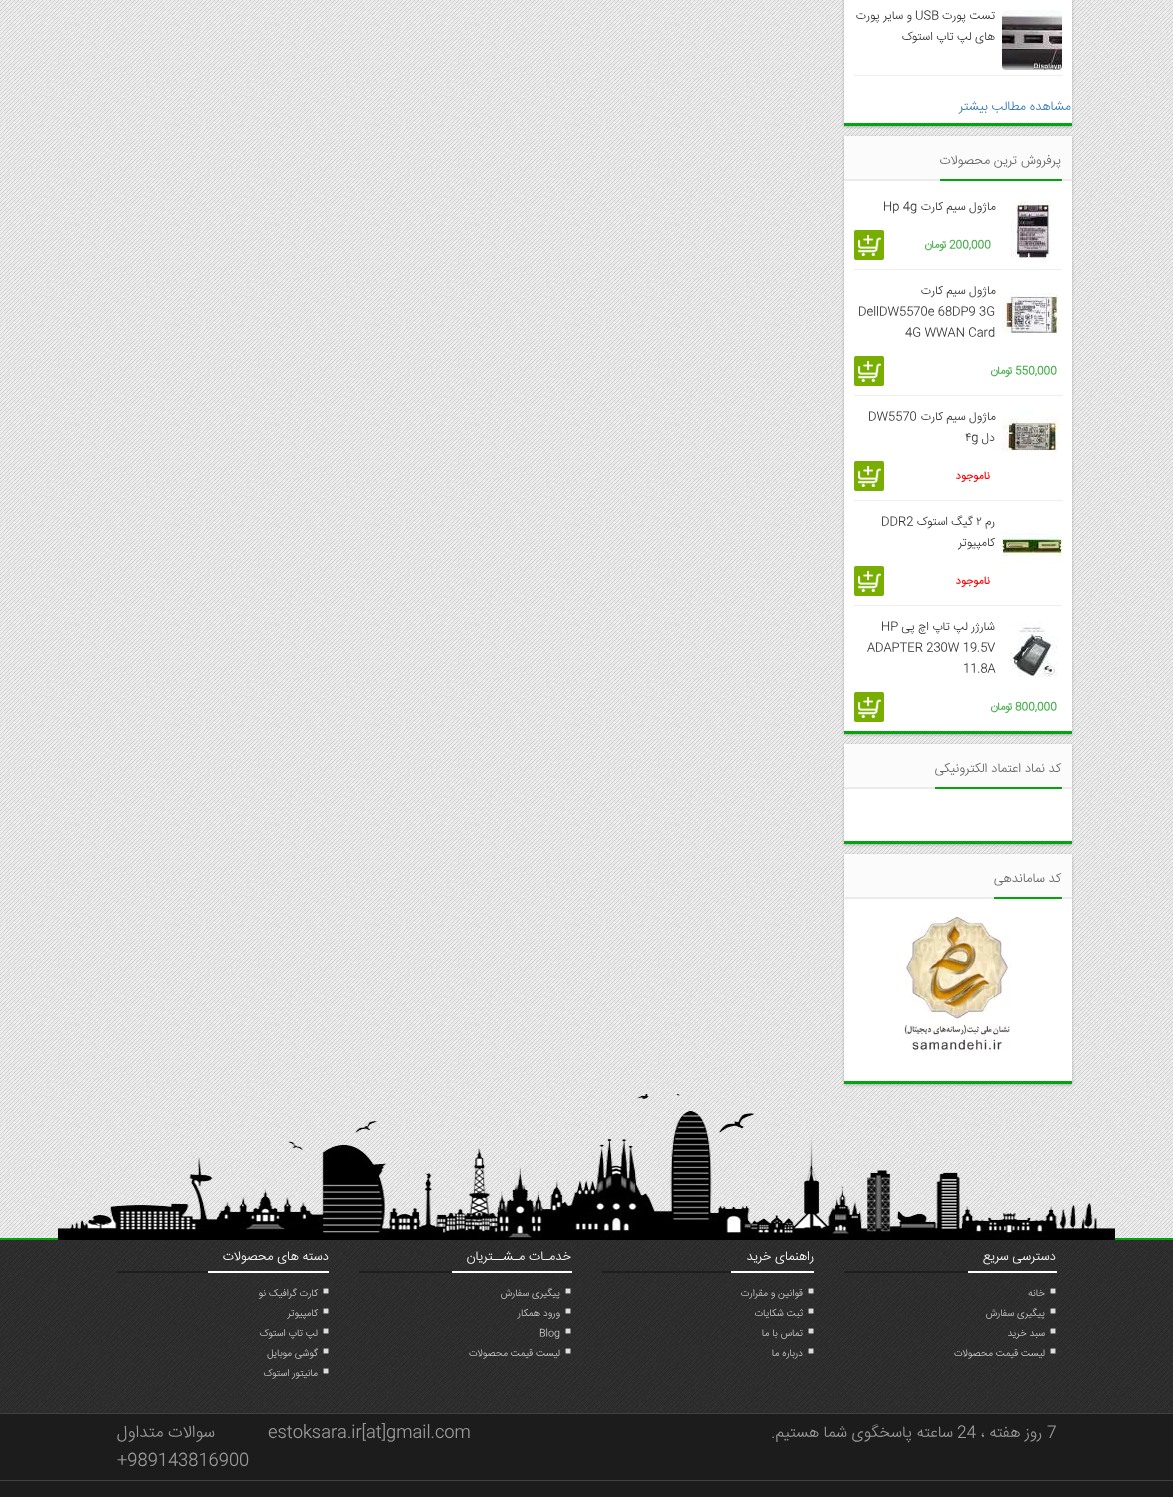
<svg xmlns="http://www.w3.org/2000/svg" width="1173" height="1497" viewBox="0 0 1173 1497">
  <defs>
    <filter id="blur1" x="-50%" y="-200%" width="200%" height="500%"><feGaussianBlur stdDeviation="1.5"/></filter>
  </defs>
  <rect width="100%" height="100%" fill="#ffffff"/>
  <image x="0" y="0" width="1173" height="1238" href="img1.png"/>
  <rect x="844" y="-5" width="228" height="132" fill="#000000" fill-opacity="0.25" filter="url(#blur1)"/>
  <rect x="844" y="0" width="228" height="123" fill="#ffffff"/>
  <rect x="844" y="123" width="228" height="3" fill="#00a60a"/>
  <rect x="854" y="75" width="208" height="1" fill="#eeeeee"/>
  <image x="1002" y="10" width="60" height="60" href="img2.png"/>
  <text x="995" y="19" font-family="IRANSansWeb" font-size="12" font-weight="300" direction="rtl" fill="#333333">تست پورت</text>
  <text x="915" y="19" font-family="IRANSansWeb" font-size="12" font-weight="300" fill="#333333">USB</text>
  <text x="912" y="19" font-family="IRANSansWeb" font-size="12" font-weight="300" direction="rtl" fill="#333333">و سایر پورت</text>
  <text x="995" y="40" font-family="IRANSansWeb" font-size="12" font-weight="300" direction="rtl" fill="#333333">های لپ تاپ استوک</text>
  <text x="1071" y="110" font-family="IRANSansWeb" font-size="13" font-weight="300" direction="rtl" fill="#337ab7">مشاهده مطالب بیشتر</text>
  <rect x="844" y="137" width="228" height="598" fill="#000000" fill-opacity="0.25" filter="url(#blur1)"/>
  <rect x="844" y="181" width="228" height="550" fill="#ffffff"/>
  <rect x="844" y="731" width="228" height="3" fill="#00a60a"/>
  <rect x="844" y="136" width="228" height="43" fill="#fbfbfb"/>
  <rect x="844" y="179" width="228" height="2" fill="#ebebeb"/>
  <rect x="940" y="179" width="122" height="2" fill="#00a60a"/>
  <text x="1061" y="164" font-family="IRANSansWeb" font-size="13" font-weight="300" direction="rtl" fill="#666666">پرفروش ترین محصولات</text>
  <rect x="854" y="269" width="208" height="1" fill="#eeeeee"/>
  <image x="1010" y="201" width="40" height="60" href="img3.png"/>
  <text x="996" y="210" font-family="IRANSansWeb" font-size="12" font-weight="300" direction="rtl" fill="#333333">ماژول سیم کارت</text>
  <text x="883" y="210" font-family="IRANSansWeb" font-size="12" font-weight="300" fill="#333333">Hp 4g</text>
  <image x="854" y="230" width="30" height="30" href="img4.png"/>
  <text x="949" y="248" font-family="IRANSansWeb" font-size="11" font-weight="bold" fill="#4caf50">200,000</text>
  <text x="946" y="248" font-family="IRANSansWeb" font-size="11" font-weight="bold" direction="rtl" fill="#4caf50">تومان</text>
  <rect x="854" y="395" width="208" height="1" fill="#eeeeee"/>
  <image x="1002" y="285" width="60" height="49" href="img5.png"/>
  <text x="996" y="294" font-family="IRANSansWeb" font-size="12" font-weight="300" direction="rtl" fill="#333333">ماژول سیم کارت</text>
  <text x="858" y="315" font-family="IRANSansWeb" font-size="12" font-weight="300" fill="#333333">DellDW5570e 68DP9 3G</text>
  <text x="905" y="336" font-family="IRANSansWeb" font-size="12" font-weight="300" fill="#333333">4G WWAN Card</text>
  <text x="1015" y="374" font-family="IRANSansWeb" font-size="11" font-weight="bold" fill="#4caf50">550,000</text>
  <text x="1012" y="374" font-family="IRANSansWeb" font-size="11" font-weight="bold" direction="rtl" fill="#4caf50">تومان</text>
  <image x="854" y="356" width="30" height="30" href="img4.png"/>
  <rect x="854" y="500" width="208" height="1" fill="#eeeeee"/>
  <image x="1002" y="411" width="60" height="47" href="img6.png"/>
  <text x="996" y="420" font-family="IRANSansWeb" font-size="12" font-weight="300" direction="rtl" fill="#333333">ماژول سیم کارت</text>
  <text x="868" y="420" font-family="IRANSansWeb" font-size="12" font-weight="300" fill="#333333">DW5570</text>
  <text x="995" y="441" font-family="IRANSansWeb" font-size="12" font-weight="300" direction="rtl" fill="#333333">دل</text>
  <text x="965" y="441" font-family="IRANSansWeb" font-size="12" font-weight="300" fill="#333333">۴g</text>
  <text x="990" y="479" font-family="IRANSansWeb" font-size="11" font-weight="bold" direction="rtl" fill="#ff0000">ناموجود</text>
  <image x="854" y="461" width="30" height="30" href="img4.png"/>
  <rect x="854" y="605" width="208" height="1" fill="#eeeeee"/>
  <image x="1002" y="532" width="60" height="32" href="img7.png"/>
  <text x="995" y="525" font-family="IRANSansWeb" font-size="12" font-weight="300" direction="rtl" fill="#333333">رم</text>
  <text x="976" y="525" font-family="IRANSansWeb" font-size="12" font-weight="300" fill="#333333">۲</text>
  <text x="973" y="525" font-family="IRANSansWeb" font-size="12" font-weight="300" direction="rtl" fill="#333333">گیگ استوک</text>
  <text x="881" y="525" font-family="IRANSansWeb" font-size="12" font-weight="300" fill="#333333">DDR2</text>
  <text x="995" y="546" font-family="IRANSansWeb" font-size="12" font-weight="300" direction="rtl" fill="#333333">کامپیوتر</text>
  <text x="990" y="584" font-family="IRANSansWeb" font-size="11" font-weight="bold" direction="rtl" fill="#ff0000">ناموجود</text>
  <image x="854" y="566" width="30" height="30" href="img4.png"/>
  <image x="1010" y="622" width="48" height="55" href="img8.png"/>
  <text x="995" y="630" font-family="IRANSansWeb" font-size="12" font-weight="300" direction="rtl" fill="#333333">شارژر لپ تاپ اچ پی</text>
  <text x="881" y="630" font-family="IRANSansWeb" font-size="12" font-weight="300" fill="#333333">HP</text>
  <text x="867" y="651" font-family="IRANSansWeb" font-size="12" font-weight="300" fill="#333333">ADAPTER 230W 19.5V</text>
  <text x="963" y="672" font-family="IRANSansWeb" font-size="12" font-weight="300" fill="#333333">11.8A</text>
  <text x="1015" y="710" font-family="IRANSansWeb" font-size="11" font-weight="bold" fill="#4caf50">800,000</text>
  <text x="1012" y="710" font-family="IRANSansWeb" font-size="11" font-weight="bold" direction="rtl" fill="#4caf50">تومان</text>
  <image x="854" y="692" width="30" height="30" href="img4.png"/>
  <rect x="844" y="745" width="228" height="100" fill="#000000" fill-opacity="0.25" filter="url(#blur1)"/>
  <rect x="844" y="789" width="228" height="52" fill="#ffffff"/>
  <rect x="844" y="841" width="228" height="3" fill="#00a60a"/>
  <rect x="844" y="744" width="228" height="43" fill="#fbfbfb"/>
  <rect x="844" y="787" width="228" height="2" fill="#ebebeb"/>
  <rect x="935" y="787" width="127" height="2" fill="#00a60a"/>
  <text x="1061" y="772" font-family="IRANSansWeb" font-size="13" font-weight="300" direction="rtl" fill="#666666">کد نماد اعتماد الکترونیکی</text>
  <rect x="844" y="855" width="228" height="230" fill="#000000" fill-opacity="0.25" filter="url(#blur1)"/>
  <rect x="844" y="899" width="228" height="182" fill="#ffffff"/>
  <rect x="844" y="1081" width="228" height="3" fill="#00a60a"/>
  <rect x="844" y="854" width="228" height="43" fill="#fbfbfb"/>
  <rect x="844" y="897" width="228" height="2" fill="#ebebeb"/>
  <rect x="994" y="897" width="68" height="2" fill="#00a60a"/>
  <text x="1061" y="882" font-family="IRANSansWeb" font-size="13" font-weight="300" direction="rtl" fill="#666666">کد ساماندهی</text>
  <image x="903" y="917" width="108" height="136" href="img9.png"/>
  <rect x="0" y="1238" width="1173" height="2" fill="#00a60a"/>
  <image x="58" y="1094" width="1057" height="146" href="img10.png"/>
  <image x="0" y="1240" width="1173" height="173" href="img11.png"/>
  <rect x="844" y="1271" width="124" height="2" fill="#1e1e1e"/>
  <text x="1056" y="1260" font-family="IRANSansWeb" font-size="13" font-weight="300" direction="rtl" fill="#ffffff">دسترسی سریع</text>
  <rect x="968" y="1271" width="89" height="2" fill="#ffffff"/>
  <text x="1050" y="1294" font-family="Liberation Serif" font-size="10" fill="#dddddd">■</text>
  <text x="1045" y="1296" font-family="IRANSansWeb" font-size="10" font-weight="300" direction="rtl" fill="#cfcfcf">خانه</text>
  <text x="1050" y="1314" font-family="Liberation Serif" font-size="10" fill="#dddddd">■</text>
  <text x="1045" y="1316" font-family="IRANSansWeb" font-size="10" font-weight="300" direction="rtl" fill="#cfcfcf">پیگیری سفارش</text>
  <text x="1050" y="1334" font-family="Liberation Serif" font-size="10" fill="#dddddd">■</text>
  <text x="1045" y="1336" font-family="IRANSansWeb" font-size="10" font-weight="300" direction="rtl" fill="#cfcfcf">سبد خرید</text>
  <text x="1050" y="1354" font-family="Liberation Serif" font-size="10" fill="#dddddd">■</text>
  <text x="1045" y="1356" font-family="IRANSansWeb" font-size="10" font-weight="300" direction="rtl" fill="#cfcfcf">لیست قیمت محصولات</text>
  <rect x="602" y="1271" width="129" height="2" fill="#1e1e1e"/>
  <text x="814" y="1260" font-family="IRANSansWeb" font-size="13" font-weight="300" direction="rtl" fill="#ffffff">راهنمای خرید</text>
  <rect x="731" y="1271" width="83" height="2" fill="#ffffff"/>
  <text x="808" y="1294" font-family="Liberation Serif" font-size="10" fill="#dddddd">■</text>
  <text x="803" y="1296" font-family="IRANSansWeb" font-size="10" font-weight="300" direction="rtl" fill="#cfcfcf">قوانین و مقرارت</text>
  <text x="808" y="1314" font-family="Liberation Serif" font-size="10" fill="#dddddd">■</text>
  <text x="803" y="1316" font-family="IRANSansWeb" font-size="10" font-weight="300" direction="rtl" fill="#cfcfcf">ثبت شکایات</text>
  <text x="808" y="1334" font-family="Liberation Serif" font-size="10" fill="#dddddd">■</text>
  <text x="803" y="1336" font-family="IRANSansWeb" font-size="10" font-weight="300" direction="rtl" fill="#cfcfcf">تماس با ما</text>
  <text x="808" y="1354" font-family="Liberation Serif" font-size="10" fill="#dddddd">■</text>
  <text x="803" y="1356" font-family="IRANSansWeb" font-size="10" font-weight="300" direction="rtl" fill="#cfcfcf">درباره ما</text>
  <rect x="359" y="1271" width="93" height="2" fill="#1e1e1e"/>
  <text x="571" y="1260" font-family="IRANSansWeb" font-size="13" font-weight="300" direction="rtl" fill="#ffffff">خدمـات مـشــتریان</text>
  <rect x="452" y="1271" width="120" height="2" fill="#ffffff"/>
  <text x="565" y="1294" font-family="Liberation Serif" font-size="10" fill="#dddddd">■</text>
  <text x="560" y="1296" font-family="IRANSansWeb" font-size="10" font-weight="300" direction="rtl" fill="#cfcfcf">پیگیری سفارش</text>
  <text x="565" y="1314" font-family="Liberation Serif" font-size="10" fill="#dddddd">■</text>
  <text x="560" y="1316" font-family="IRANSansWeb" font-size="10" font-weight="300" direction="rtl" fill="#cfcfcf">ورود همکار</text>
  <text x="565" y="1334" font-family="Liberation Serif" font-size="10" fill="#dddddd">■</text>
  <text x="539" y="1336" font-family="IRANSansWeb" font-size="10" font-weight="300" fill="#cfcfcf">Blog</text>
  <text x="565" y="1354" font-family="Liberation Serif" font-size="10" fill="#dddddd">■</text>
  <text x="560" y="1356" font-family="IRANSansWeb" font-size="10" font-weight="300" direction="rtl" fill="#cfcfcf">لیست قیمت محصولات</text>
  <rect x="117" y="1271" width="91" height="2" fill="#1e1e1e"/>
  <text x="329" y="1260" font-family="IRANSansWeb" font-size="13" font-weight="300" direction="rtl" fill="#ffffff">دسته های محصولات</text>
  <rect x="208" y="1271" width="121" height="2" fill="#ffffff"/>
  <text x="323" y="1294" font-family="Liberation Serif" font-size="10" fill="#dddddd">■</text>
  <text x="318" y="1296" font-family="IRANSansWeb" font-size="10" font-weight="300" direction="rtl" fill="#cfcfcf">کارت گرافیک نو</text>
  <text x="323" y="1314" font-family="Liberation Serif" font-size="10" fill="#dddddd">■</text>
  <text x="318" y="1316" font-family="IRANSansWeb" font-size="10" font-weight="300" direction="rtl" fill="#cfcfcf">کامپیوتر</text>
  <text x="323" y="1334" font-family="Liberation Serif" font-size="10" fill="#dddddd">■</text>
  <text x="318" y="1336" font-family="IRANSansWeb" font-size="10" font-weight="300" direction="rtl" fill="#cfcfcf">لپ تاپ استوک</text>
  <text x="323" y="1354" font-family="Liberation Serif" font-size="10" fill="#dddddd">■</text>
  <text x="318" y="1356" font-family="IRANSansWeb" font-size="10" font-weight="300" direction="rtl" fill="#cfcfcf">گوشی موبایل</text>
  <text x="323" y="1374" font-family="Liberation Serif" font-size="10" fill="#dddddd">■</text>
  <text x="318" y="1376" font-family="IRANSansWeb" font-size="10" font-weight="300" direction="rtl" fill="#cfcfcf">مانیتور استوک</text>
  <rect x="0" y="1414" width="1173" height="66" fill="#1c1c1c"/>
  <rect x="0" y="1413" width="1173" height="1" fill="#414141"/>
  <rect x="0" y="1480" width="1173" height="1" fill="#414141"/>
  <text x="1047" y="1437" font-family="IRANSansWeb" font-size="16" font-weight="300" fill="#9a9a9a">7</text>
  <text x="1042" y="1437" font-family="IRANSansWeb" font-size="16" font-weight="300" direction="rtl" fill="#9a9a9a">روز هفته ،</text>
  <text x="957" y="1437" font-family="IRANSansWeb" font-size="16" font-weight="300" fill="#9a9a9a">24</text>
  <text x="953" y="1437" font-family="IRANSansWeb" font-size="16" font-weight="300" direction="rtl" fill="#9a9a9a">ساعته پاسخگوی شما هستیم.</text>
  <text x="268" y="1437" font-family="IRANSansWeb" font-size="17" font-weight="300" fill="#9a9a9a">estoksara.ir[at]gmail.com</text>
  <text x="215" y="1437" font-family="IRANSansWeb" font-size="17" font-weight="300" direction="rtl" fill="#9a9a9a">سوالات متداول</text>
  <text x="117" y="1465" font-family="IRANSansWeb" font-size="17" font-weight="300" fill="#9a9a9a">+989143816900</text>
  <rect x="0" y="1481" width="1173" height="16" fill="#1c1c1c"/>
</svg>
